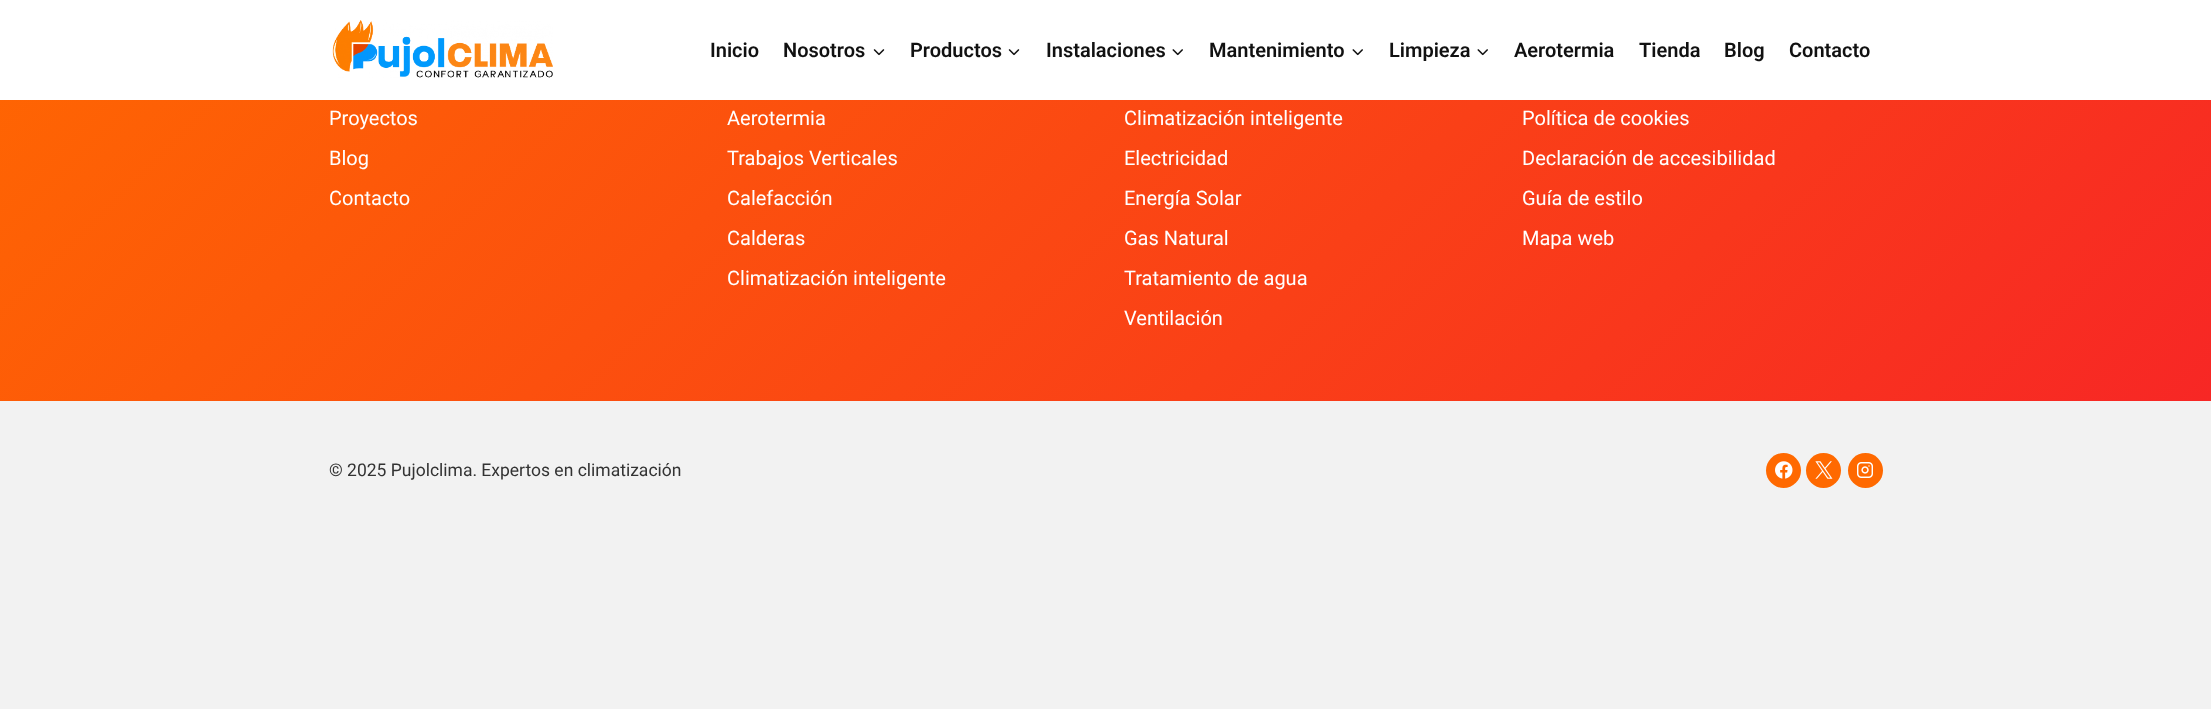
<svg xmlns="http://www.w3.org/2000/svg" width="2211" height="709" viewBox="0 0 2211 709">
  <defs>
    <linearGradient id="g1" gradientUnits="userSpaceOnUse" x1="426" y1="-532" x2="1785" y2="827"><stop offset="0" stop-color="#ff6900"/><stop offset="1" stop-color="#f72725"/></linearGradient>
  </defs>
  <rect width="100%" height="100%" fill="#f2f2f2"/>
  <rect x="0" y="0" width="2211" height="100" fill="#ffffff"/>
  <image x="332" y="20" width="221" height="58" href="img1.png"/>
  <text x="710" y="57" font-family="Roboto" font-size="20" font-weight="600" fill="#111111">Inicio</text>
  <text x="783" y="57" font-family="Roboto" font-size="20" font-weight="600" fill="#111111">Nosotros</text>
  <image x="873" y="49" width="12" height="7" href="img2.png"/>
  <text x="910" y="57" font-family="Roboto" font-size="20" font-weight="600" fill="#111111">Productos</text>
  <image x="1008" y="49" width="12" height="7" href="img2.png"/>
  <text x="1046" y="57" font-family="Roboto" font-size="20" font-weight="600" fill="#111111">Instalaciones</text>
  <image x="1172" y="49" width="11" height="7" href="img3.png"/>
  <text x="1209" y="57" font-family="Roboto" font-size="20" font-weight="600" fill="#111111">Mantenimiento</text>
  <image x="1352" y="49" width="11" height="7" href="img3.png"/>
  <text x="1389" y="57" font-family="Roboto" font-size="20" font-weight="600" fill="#111111">Limpieza</text>
  <image x="1477" y="49" width="11" height="7" href="img3.png"/>
  <text x="1514" y="57" font-family="Roboto" font-size="20" font-weight="600" fill="#111111">Aerotermia</text>
  <text x="1639" y="57" font-family="Roboto" font-size="20" font-weight="600" fill="#111111">Tienda</text>
  <text x="1724" y="57" font-family="Roboto" font-size="20" font-weight="600" fill="#111111">Blog</text>
  <text x="1789" y="57" font-family="Roboto" font-size="20" font-weight="600" fill="#111111">Contacto</text>
  <rect x="0" y="100" width="2211" height="301" fill="url(#g1)"/>
  <text x="329" y="125" font-family="Roboto" font-size="20" fill="#ffffff">Proyectos</text>
  <text x="329" y="165" font-family="Roboto" font-size="20" fill="#ffffff">Blog</text>
  <text x="329" y="205" font-family="Roboto" font-size="20" fill="#ffffff">Contacto</text>
  <text x="727" y="125" font-family="Roboto" font-size="20" fill="#ffffff">Aerotermia</text>
  <text x="727" y="165" font-family="Roboto" font-size="20" fill="#ffffff">Trabajos Verticales</text>
  <text x="727" y="205" font-family="Roboto" font-size="20" fill="#ffffff">Calefacción</text>
  <text x="727" y="245" font-family="Roboto" font-size="20" fill="#ffffff">Calderas</text>
  <text x="727" y="285" font-family="Roboto" font-size="20" fill="#ffffff">Climatización inteligente</text>
  <text x="1124" y="125" font-family="Roboto" font-size="20" fill="#ffffff">Climatización inteligente</text>
  <text x="1124" y="165" font-family="Roboto" font-size="20" fill="#ffffff">Electricidad</text>
  <text x="1124" y="205" font-family="Roboto" font-size="20" fill="#ffffff">Energía Solar</text>
  <text x="1124" y="245" font-family="Roboto" font-size="20" fill="#ffffff">Gas Natural</text>
  <text x="1124" y="285" font-family="Roboto" font-size="20" fill="#ffffff">Tratamiento de agua</text>
  <text x="1124" y="325" font-family="Roboto" font-size="20" fill="#ffffff">Ventilación</text>
  <text x="1522" y="125" font-family="Roboto" font-size="20" fill="#ffffff">Política de cookies</text>
  <text x="1522" y="165" font-family="Roboto" font-size="20" fill="#ffffff">Declaración de accesibilidad</text>
  <text x="1522" y="205" font-family="Roboto" font-size="20" fill="#ffffff">Guía de estilo</text>
  <text x="1522" y="245" font-family="Roboto" font-size="20" fill="#ffffff">Mapa web</text>
  <text x="329" y="476" font-family="Roboto" font-size="17.5" fill="#333333">© 2025 Pujolclima. Expertos en climatización</text>
  <circle cx="1783.5" cy="470.5" r="17.5" fill="#ff6900"/>
  <image x="1775" y="461" width="18" height="18" href="img4.png"/>
  <circle cx="1823.5" cy="470.5" r="17.5" fill="#ff6900"/>
  <image x="1815" y="461" width="18" height="18" href="img5.png"/>
  <circle cx="1865.5" cy="470.5" r="17.5" fill="#ff6900"/>
  <image x="1857" y="462" width="16" height="16" href="img6.png"/>
</svg>
